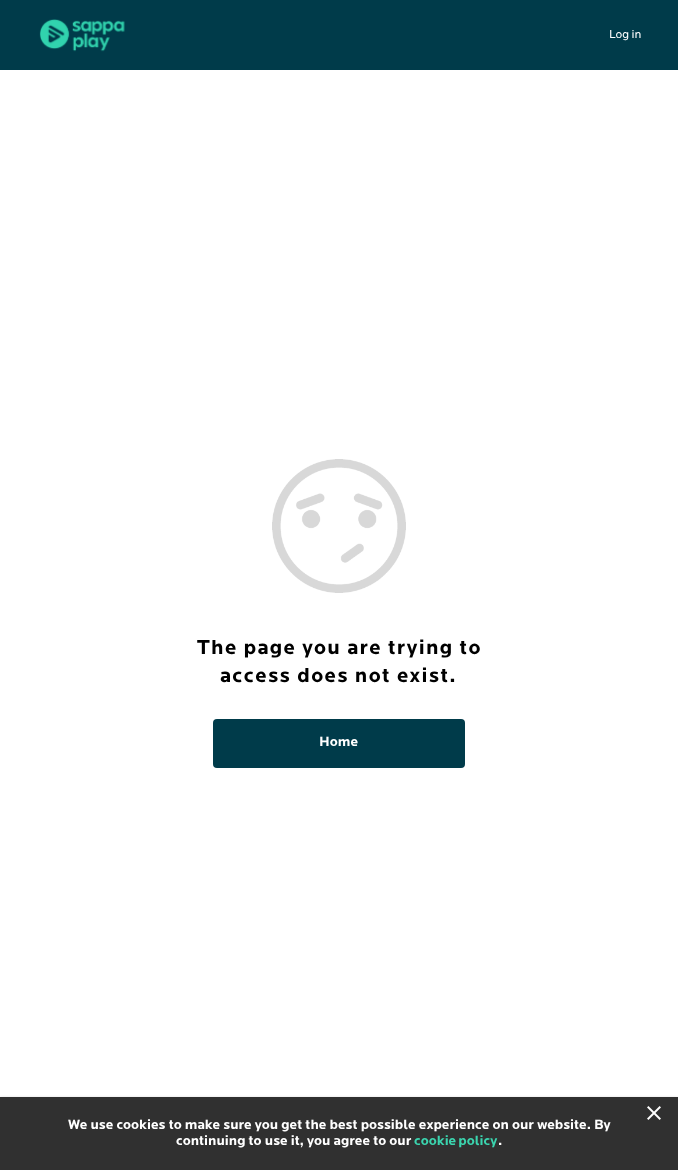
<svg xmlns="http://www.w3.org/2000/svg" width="678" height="1170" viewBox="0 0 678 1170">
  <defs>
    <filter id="blur1" x="-50%" y="-200%" width="200%" height="500%"><feGaussianBlur stdDeviation="1.5"/></filter>
  </defs>
  <rect width="100%" height="100%" fill="#ffffff"/>
  <rect x="0" y="0" width="678" height="70" fill="#003b4a"/>
  <image x="39" y="19" width="86" height="33" href="img1.png"/>
  <text x="609" y="38" font-family="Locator" font-size="12" fill="#ffffff">Log in</text>
  <image x="272" y="459" width="134" height="134" href="img2.png"/>
  <text x="197" y="654" font-family="Locator" font-size="21" font-weight="bold" letter-spacing="1.3" fill="#000000">The page you are trying to</text>
  <text x="220" y="682" font-family="Locator" font-size="21" font-weight="bold" letter-spacing="1.3" fill="#000000">access does not exist.</text>
  <rect x="213" y="719" width="252" height="49" rx="4" fill="#003b4a"/>
  <text x="319" y="746" font-family="Locator" font-size="14" font-weight="bold" fill="#ffffff">Home</text>
  <rect x="0" y="1098" width="678" height="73" fill="#060006" fill-opacity="0.28" filter="url(#blur1)"/>
  <rect x="0" y="1097" width="678" height="73" fill="#303030"/>
  <image x="647" y="1106" width="14" height="14" href="img3.png"/>
  <text x="68" y="1129" font-family="Locator" font-size="14" font-weight="bold" fill="#ffffff">We use cookies to make sure you get the best possible experience on our website. By</text>
  <text x="176" y="1145" font-family="Locator" font-size="14" font-weight="bold" fill="#ffffff">continuing to use it, you agree to our</text>
  <text x="414" y="1145" word-spacing="-1" font-family="Locator" font-size="14" font-weight="bold" fill="#3bd4ae">cookie policy</text>
  <text x="498" y="1145" font-family="Locator" font-size="14" font-weight="bold" fill="#ffffff">.</text>
</svg>
